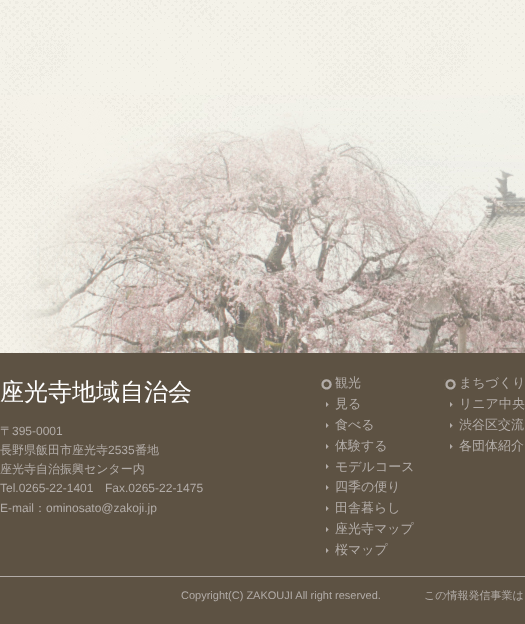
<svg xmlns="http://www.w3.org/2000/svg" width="525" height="624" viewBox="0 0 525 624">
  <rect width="100%" height="100%" fill="#ffffff"/>
  <image x="0" y="0" width="525" height="95" href="img1.png"/>
  <image x="0" y="95" width="525" height="258" href="img2.png"/>
  <rect x="0" y="353" width="525" height="271" fill="#5d5243"/>
  <text x="0" y="400" font-family="WenQuanYi Zen Hei" font-size="24" font-weight="500" fill="#ffffff">座光寺地域自治会</text>
  <image x="320" y="379" width="12" height="11" href="img3.png"/>
  <text x="335" y="387" font-family="WenQuanYi Zen Hei" font-size="13" font-weight="500" fill="#b2aca8">観光</text>
  <image x="326" y="402" width="3" height="5" href="img4.png"/>
  <text x="335" y="408" font-family="WenQuanYi Zen Hei" font-size="13" font-weight="500" fill="#b2aca8">見る</text>
  <image x="326" y="423" width="3" height="5" href="img4.png"/>
  <text x="335" y="429" font-family="WenQuanYi Zen Hei" font-size="13" font-weight="500" fill="#b2aca8">食べる</text>
  <image x="326" y="444" width="3" height="5" href="img4.png"/>
  <text x="335" y="450" font-family="WenQuanYi Zen Hei" font-size="13" font-weight="500" fill="#b2aca8">体験する</text>
  <image x="326" y="464" width="3" height="5" href="img4.png"/>
  <text x="335" y="471" font-family="WenQuanYi Zen Hei" font-size="13" font-weight="500" fill="#b2aca8">モデルコース</text>
  <image x="326" y="485" width="3" height="5" href="img4.png"/>
  <text x="335" y="491" font-family="WenQuanYi Zen Hei" font-size="13" font-weight="500" fill="#b2aca8">四季の便り</text>
  <image x="326" y="506" width="3" height="5" href="img4.png"/>
  <text x="335" y="512" font-family="WenQuanYi Zen Hei" font-size="13" font-weight="500" fill="#b2aca8">田舎暮らし</text>
  <image x="326" y="527" width="3" height="5" href="img4.png"/>
  <text x="335" y="533" font-family="WenQuanYi Zen Hei" font-size="13" font-weight="500" fill="#b2aca8">座光寺マップ</text>
  <image x="326" y="548" width="3" height="5" href="img4.png"/>
  <text x="335" y="554" font-family="WenQuanYi Zen Hei" font-size="13" font-weight="500" fill="#b2aca8">桜マップ</text>
  <image x="444" y="379" width="12" height="11" href="img3.png"/>
  <text x="459" y="387" font-family="WenQuanYi Zen Hei" font-size="13" font-weight="500" fill="#b2aca8">まちづくり</text>
  <image x="450" y="402" width="3" height="5" href="img4.png"/>
  <text x="459" y="408" font-family="WenQuanYi Zen Hei" font-size="13" font-weight="500" fill="#b2aca8">リニア中央</text>
  <image x="450" y="423" width="3" height="5" href="img4.png"/>
  <text x="459" y="429" font-family="WenQuanYi Zen Hei" font-size="13" font-weight="500" fill="#b2aca8">渋谷区交流</text>
  <image x="450" y="444" width="3" height="5" href="img4.png"/>
  <text x="459" y="450" font-family="WenQuanYi Zen Hei" font-size="13" font-weight="500" fill="#b2aca8">各団体紹介</text>
  <text x="0" y="435" font-family="WenQuanYi Zen Hei" font-size="12" font-weight="500" fill="#b2aca8">〒</text>
  <text x="12" y="435" font-family="Liberation Sans" font-size="12" fill="#b2aca8">395-0001</text>
  <text x="0" y="454" font-family="WenQuanYi Zen Hei" font-size="12" font-weight="500" fill="#b2aca8">長野県飯田市座光寺</text>
  <text x="108" y="454" font-family="Liberation Sans" font-size="12" fill="#b2aca8">2535</text>
  <text x="135" y="454" font-family="WenQuanYi Zen Hei" font-size="12" font-weight="500" fill="#b2aca8">番地</text>
  <text x="0" y="473" font-family="WenQuanYi Zen Hei" font-size="12" font-weight="500" fill="#b2aca8">座光寺自治振興センター内</text>
  <text x="0" y="492" font-family="Liberation Sans" font-size="12" fill="#b2aca8">Tel.0265-22-1401</text>
  <text x="105" y="492" font-family="Liberation Sans" font-size="12" fill="#b2aca8">Fax.0265-22-1475</text>
  <text x="0" y="512" font-family="Liberation Sans" font-size="12" fill="#b2aca8">E-mail</text>
  <text x="34" y="512" font-family="WenQuanYi Zen Hei" font-size="12" font-weight="500" fill="#b2aca8">：</text>
  <text x="46" y="512" font-family="Liberation Sans" font-size="12" fill="#b2aca8">ominosato@zakoji.jp</text>
  <rect x="0" y="576" width="525" height="1" fill="#b2aca8"/>
  <text x="181" y="599" font-family="Liberation Sans" font-size="11" fill="#b2aca8">Copyright(C) ZAKOUJI All right reserved.</text>
  <text x="424" y="599" font-family="WenQuanYi Zen Hei" font-size="11" font-weight="500" fill="#b2aca8">この情報発信事業は</text>
</svg>
